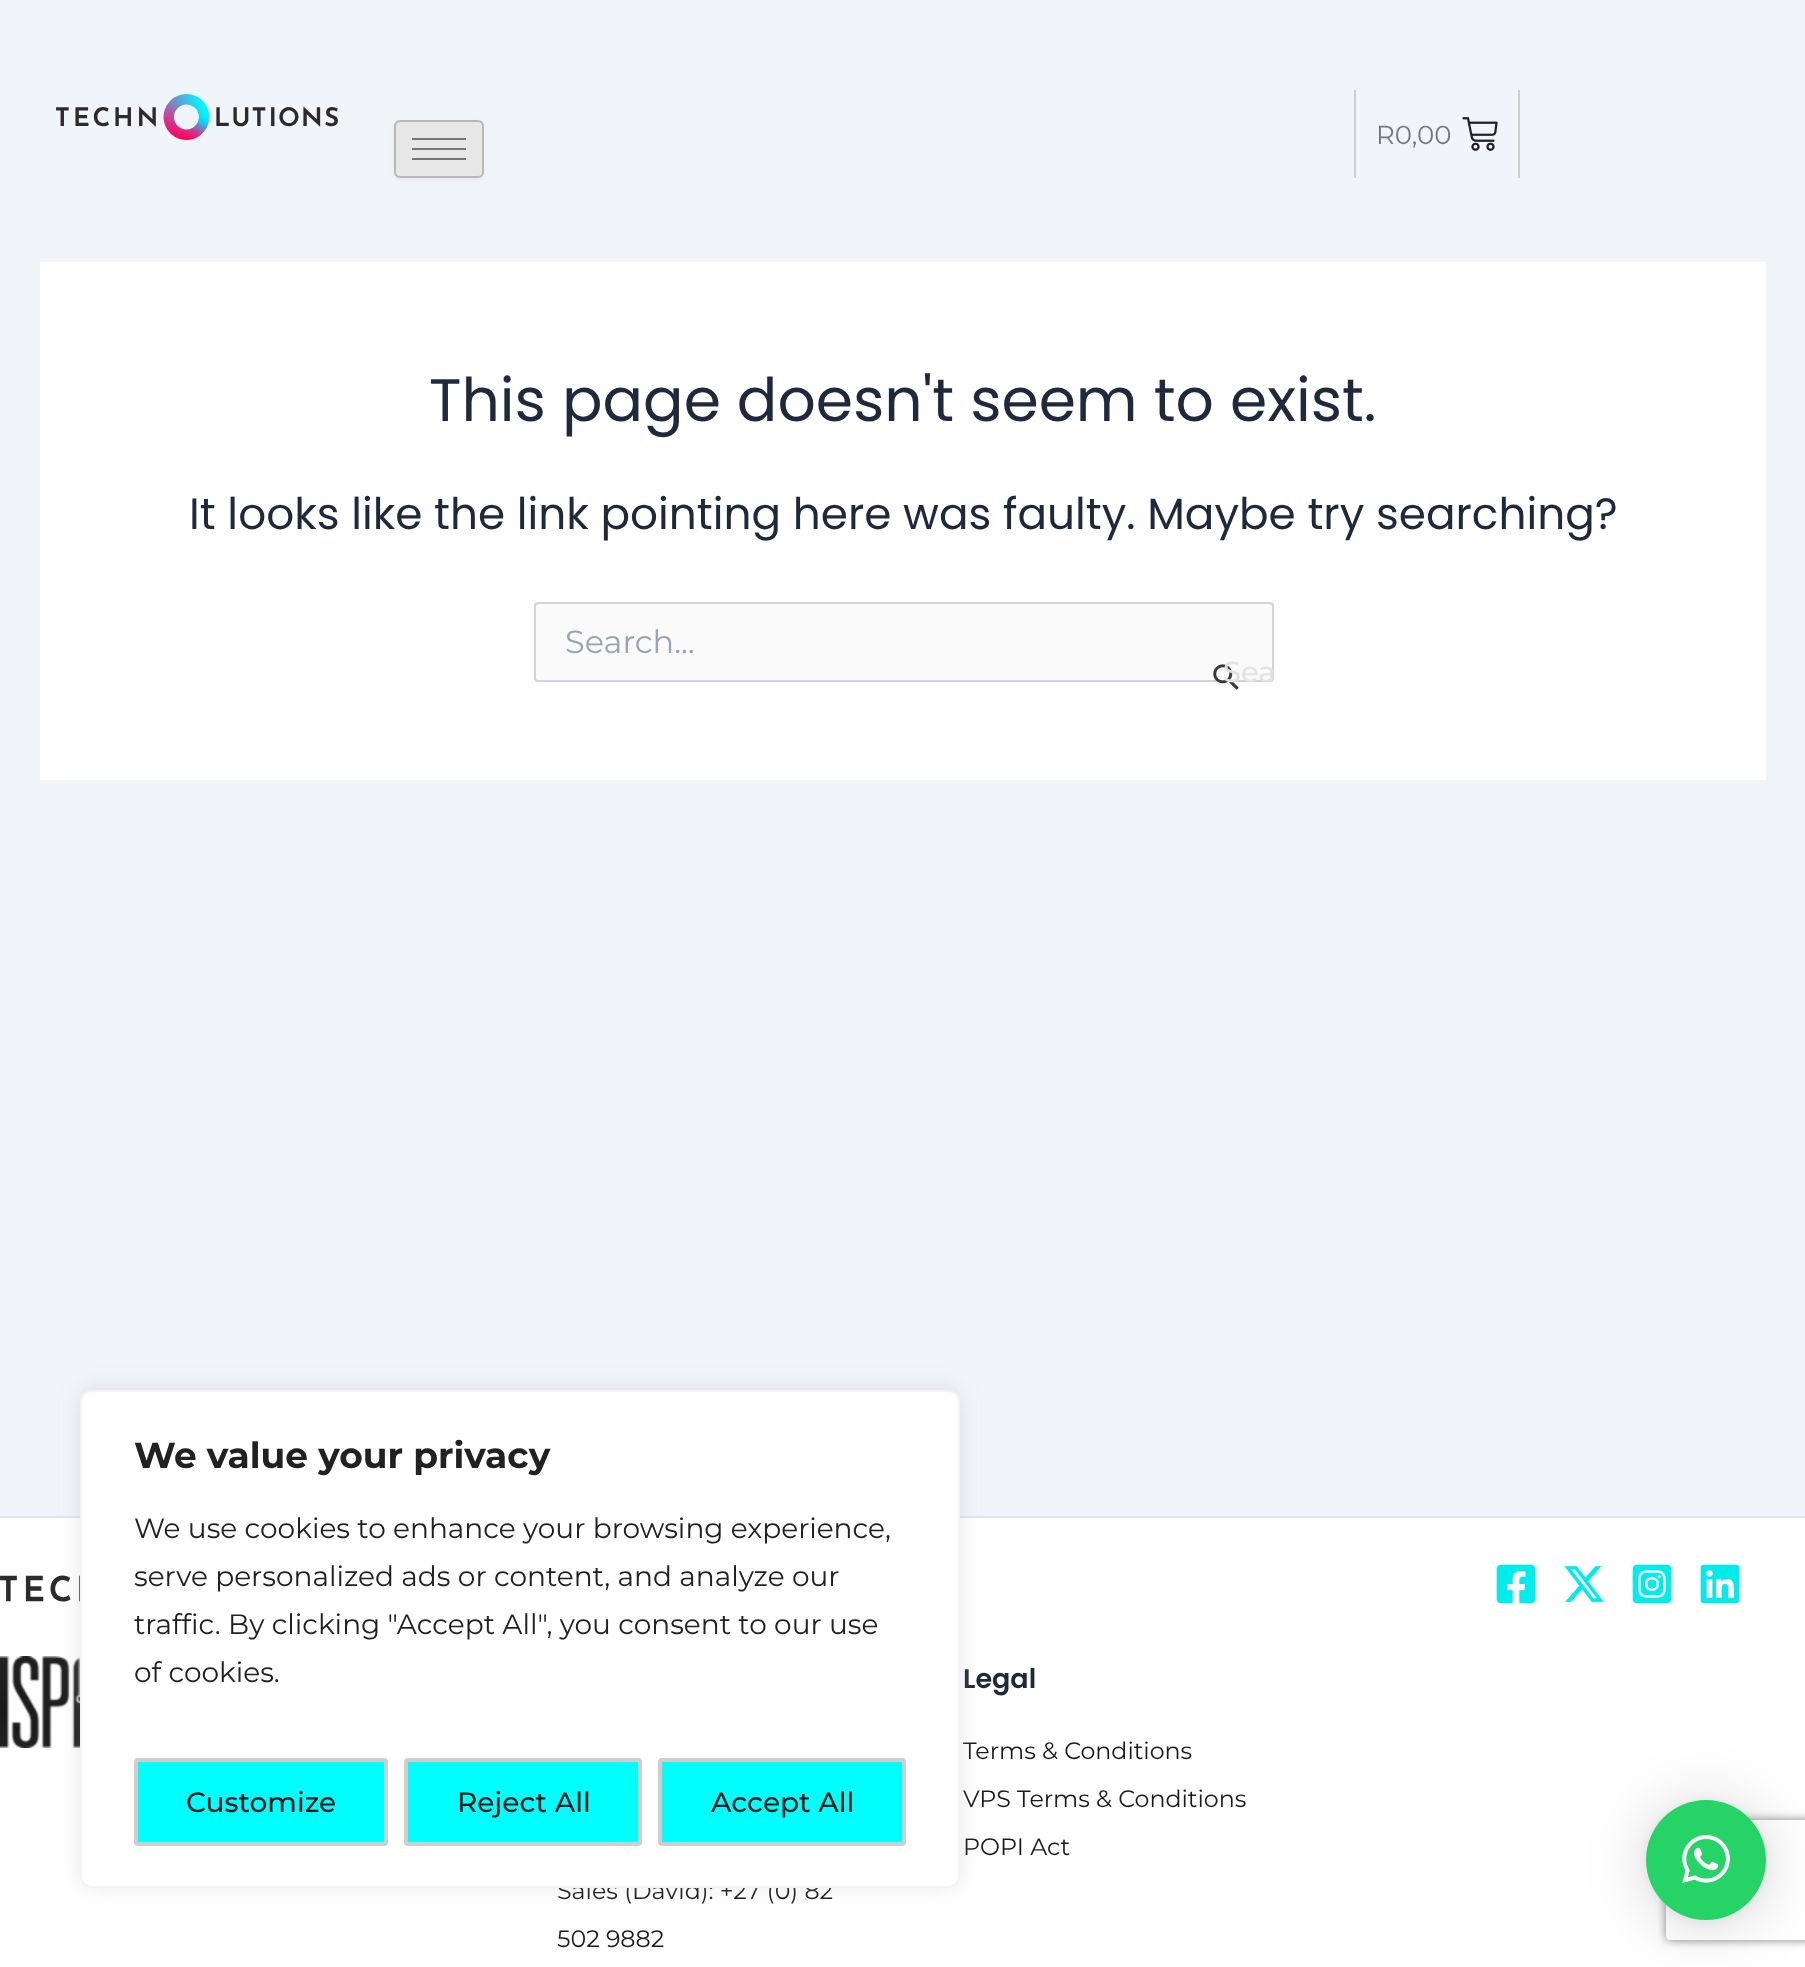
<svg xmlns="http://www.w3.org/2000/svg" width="1805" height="1967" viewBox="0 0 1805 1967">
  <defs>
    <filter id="blur1" x="-50%" y="-200%" width="200%" height="500%"><feGaussianBlur stdDeviation="2"/></filter>
    <filter id="blur2" x="-50%" y="-200%" width="200%" height="500%"><feGaussianBlur stdDeviation="10"/></filter>
    <filter id="blur3" x="-50%" y="-200%" width="200%" height="500%"><feGaussianBlur stdDeviation="32"/></filter>
    <filter id="blur4" x="-50%" y="-200%" width="200%" height="500%"><feGaussianBlur stdDeviation="6"/></filter>
    <clipPath id="clip1"><path d="M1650 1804H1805V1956H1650ZM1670 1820H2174C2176 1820 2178 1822 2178 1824V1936C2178 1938 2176 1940 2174 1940H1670C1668 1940 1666 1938 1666 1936V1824C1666 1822 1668 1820 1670 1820Z" clip-rule="evenodd"/></clipPath>
    <filter id="blur5" x="-50%" y="-200%" width="200%" height="500%"><feGaussianBlur stdDeviation="5"/></filter>
  </defs>
  <rect width="100%" height="100%" fill="#f0f5fa"/>
  <image x="56" y="94" width="282" height="46" href="img1.png"/>
  <rect x="394" y="122" width="90" height="58" rx="6" fill="#000000" fill-opacity="0.05" filter="url(#blur1)"/>
  <rect x="394" y="120" width="90" height="58" rx="6" fill="#e7e7e7"/>
  <rect x="395" y="121" width="88" height="56" rx="5" fill="none" stroke="#000000" stroke-opacity="0.2" stroke-width="2"/>
  <rect x="412" y="138" width="54" height="2" fill="#747474"/>
  <rect x="412" y="148" width="54" height="2" fill="#747474"/>
  <rect x="412" y="158" width="54" height="2" fill="#747474"/>
  <rect x="1518" y="90" width="2" height="88" fill="#cecece"/>
  <rect x="1354" y="90" width="2" height="88" fill="#cecece"/>
  <text x="1376" y="144" font-family="Montserrat" font-size="26" fill="#777777">R0,00</text>
  <image x="1462" y="117" width="36" height="34" href="img2.png"/>
  <rect x="40" y="262" width="1726" height="518" fill="#ffffff"/>
  <text x="429" y="421" font-family="Poppins" font-size="60" fill="#1e293b">This page doesn't seem to exist.</text>
  <text x="189" y="529" font-family="Poppins" font-size="43.75" fill="#1e293b">It looks like the link pointing here was faulty. Maybe try searching?</text>
  <rect x="535" y="603" width="738" height="78" rx="3" fill="#fafafa" stroke="#d1d5db" stroke-width="2"/>
  <text x="565" y="653" font-family="Montserrat" font-size="32" fill="#9ca3af">Search...</text>
  <image x="1213" y="664" width="26" height="26" href="img3.png"/>
  <text x="1223" y="682" font-family="Montserrat" font-size="29" font-weight="500" fill="#e1e2e3">Sea</text>
  <rect x="0" y="1518" width="1805" height="449" fill="#ffffff"/>
  <rect x="0" y="1516" width="1805" height="2" fill="#e3e3e3"/>
  <image x="0" y="1575" width="80" height="27" href="img4.png"/>
  <image x="0" y="1656" width="80" height="92" href="img5.png"/>
  <text x="963" y="1688" font-family="Poppins" font-size="27" font-weight="600" fill="#1e293b">Legal</text>
  <text x="963" y="1759" font-family="Montserrat" font-size="23.75" fill="#1a1a1a">Terms &amp; Conditions</text>
  <text x="963" y="1807" font-family="Montserrat" font-size="23.75" fill="#1a1a1a">VPS Terms &amp; Conditions</text>
  <text x="963" y="1855" font-family="Montserrat" font-size="23.75" fill="#1a1a1a">POPI Act</text>
  <image x="1496" y="1564" width="40" height="40" href="img6.png"/>
  <image x="1564" y="1566" width="40" height="36" href="img7.png"/>
  <image x="1632" y="1564" width="40" height="40" href="img8.png"/>
  <image x="1700" y="1564" width="40" height="40" href="img9.png"/>
  <text x="557" y="1899" font-family="Montserrat" font-size="23.75" fill="#1a1a1a">Sales (David): +27 (0) 82</text>
  <text x="557" y="1947" font-family="Montserrat" font-size="23.75" fill="#1a1a1a">502 9882</text>
  <rect x="80" y="1388" width="880" height="498" rx="12" fill="#acabab" fill-opacity="0.3" filter="url(#blur2)"/>
  <rect x="81" y="1391" width="878" height="496" rx="11" fill="#ffffff" stroke="#f4f4f4" stroke-width="2"/>
  <text x="134" y="1468" font-family="Montserrat" font-size="36" font-weight="bold" fill="#212121">We value your privacy</text>
  <text x="134" y="1538" font-family="Montserrat" font-size="28" fill="#212121">We use cookies to enhance your browsing experience,</text>
  <text x="134" y="1586" font-family="Montserrat" font-size="28" fill="#212121">serve personalized ads or content, and analyze our</text>
  <text x="134" y="1634" font-family="Montserrat" font-size="28" fill="#212121">traffic. By clicking "Accept All", you consent to our use</text>
  <text x="134" y="1682" font-family="Montserrat" font-size="28" fill="#212121">of cookies.</text>
  <rect x="136" y="1760" width="250" height="84" rx="2" fill="#00ffff" stroke="#cecece" stroke-width="4"/>
  <text x="186" y="1812" font-family="Montserrat" font-size="28" font-weight="500" fill="#1a1a1a">Customize</text>
  <rect x="406" y="1760" width="234" height="84" rx="2" fill="#00ffff" stroke="#cecece" stroke-width="4"/>
  <text x="457" y="1812" font-family="Montserrat" font-size="28" font-weight="500" fill="#1a1a1a">Reject All</text>
  <rect x="660" y="1760" width="244" height="84" rx="2" fill="#00ffff" stroke="#cecece" stroke-width="4"/>
  <text x="711" y="1812" font-family="Montserrat" font-size="28" font-weight="500" fill="#1a1a1a">Accept All</text>
  <rect x="1646" y="1804" width="120" height="120" rx="60" fill="#000000" fill-opacity="0.16" filter="url(#blur3)"/>
  <rect x="1646" y="1802" width="120" height="120" rx="60" fill="#000000" fill-opacity="0.06" filter="url(#blur4)"/>
  <g clip-path="url(#clip1)">
    <rect x="1666" y="1820" width="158" height="120" rx="4" fill="#808080" filter="url(#blur5)"/>
  </g>
  <circle cx="1706" cy="1860" r="60" fill="#25d366"/>
  <image x="1682" y="1835" width="48" height="48" href="img10.png"/>
</svg>
